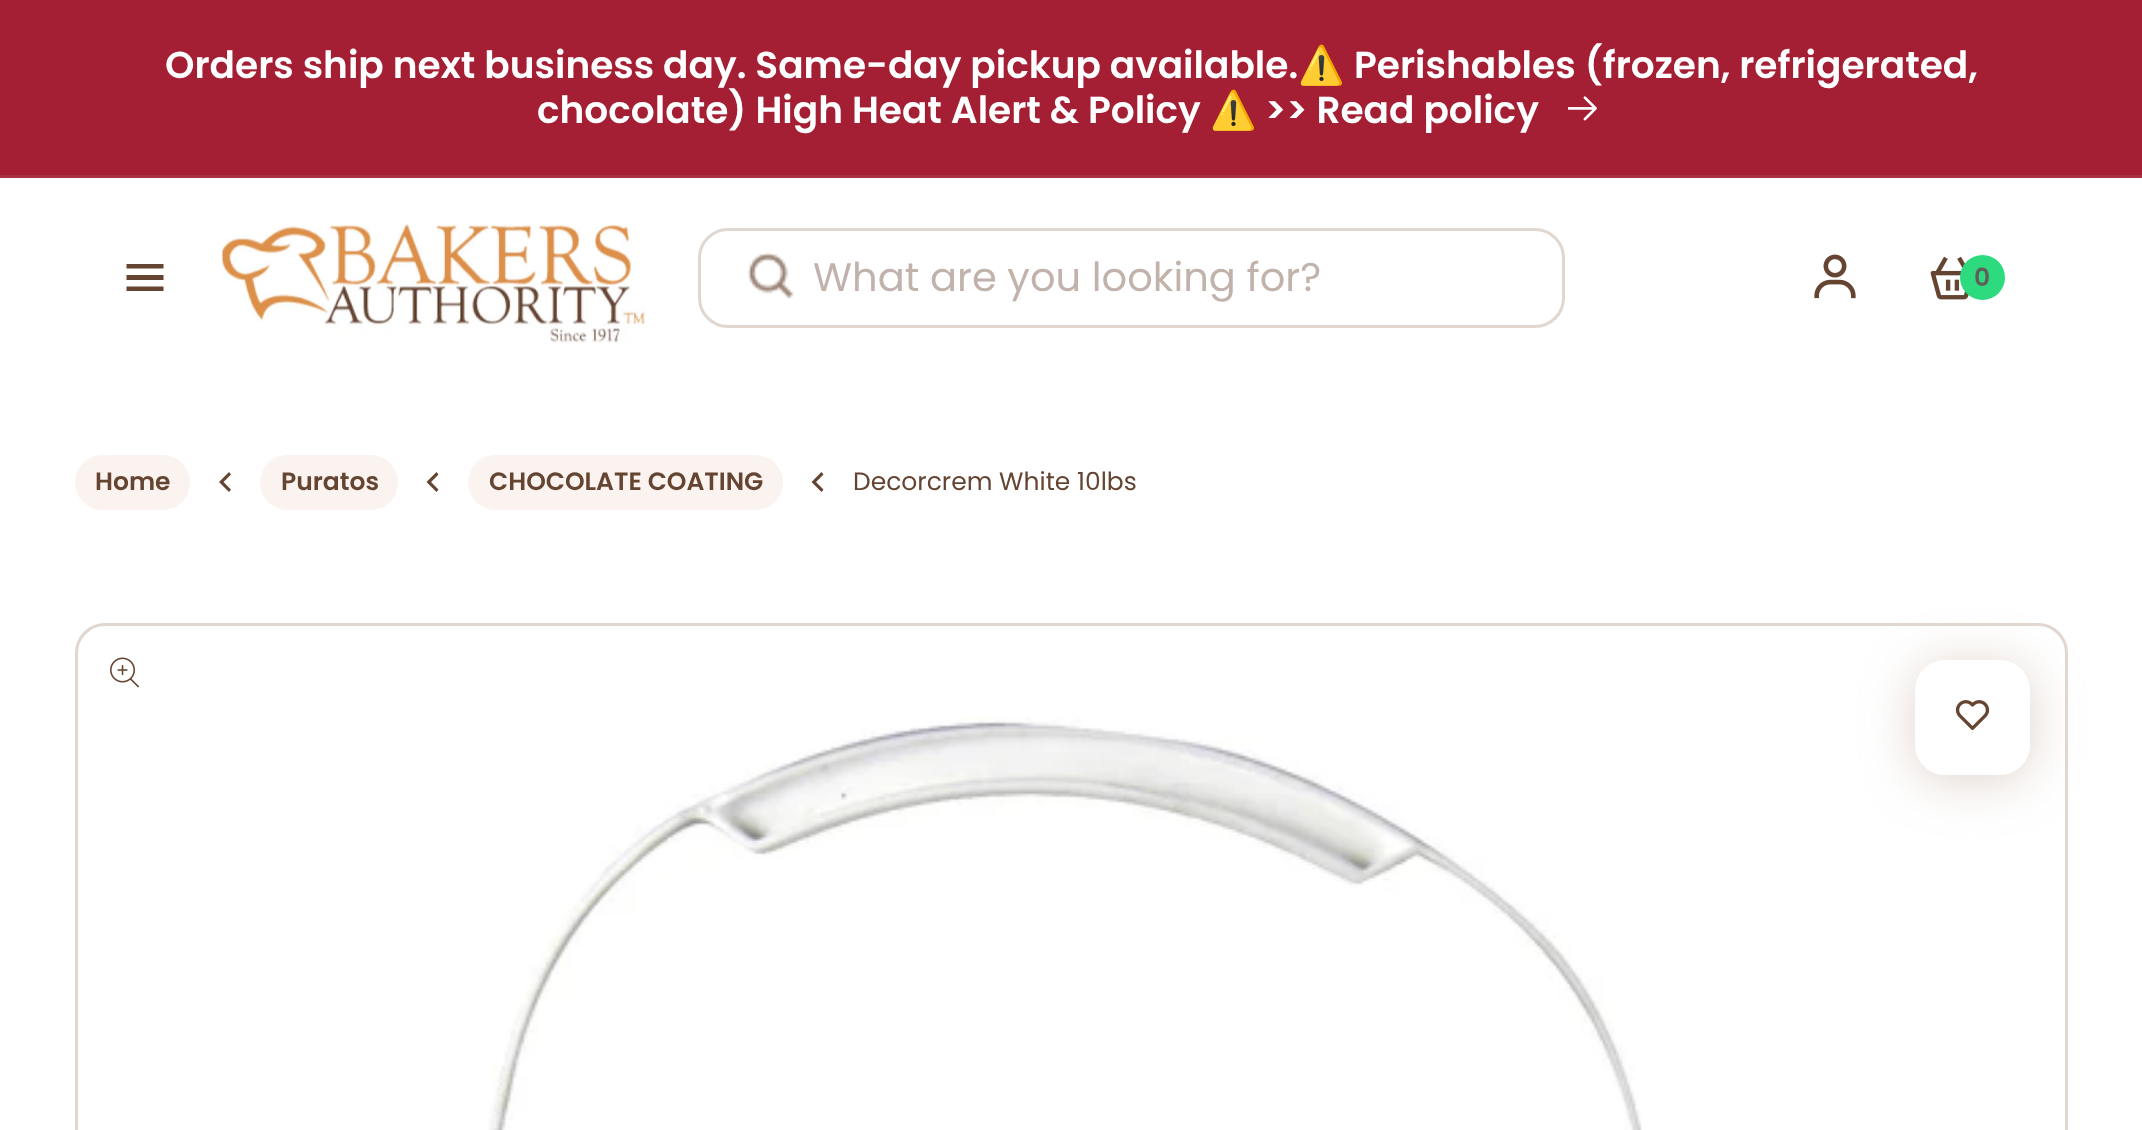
<svg xmlns="http://www.w3.org/2000/svg" width="2142" height="1130" viewBox="0 0 2142 1130">
  <defs>
    <filter id="blur1" x="-50%" y="-200%" width="200%" height="500%"><feGaussianBlur stdDeviation="25"/></filter>
  </defs>
  <rect width="100%" height="100%" fill="#ffffff"/>
  <rect x="0" y="0" width="2142" height="175" fill="#a41e34"/>
  <rect x="0" y="175" width="2142" height="3" fill="#ab3044"/>
  <text x="165" y="78" font-family="Poppins" font-size="37.5" font-weight="600" fill="#ffffff">Orders ship next business day. Same-day pickup available.</text>
  <text x="1298" y="78" font-family="Noto Color Emoji" font-size="37.5" font-weight="bold" fill="#ffffff">⚠️</text>
  <text x="1354" y="78" font-family="Poppins" font-size="37.5" font-weight="600" fill="#ffffff">Perishables (frozen, refrigerated,</text>
  <text x="537" y="123" font-family="Poppins" font-size="37.5" font-weight="600" fill="#ffffff">chocolate) High Heat Alert &amp; Policy</text>
  <text x="1210" y="123" font-family="Noto Color Emoji" font-size="37.5" font-weight="bold" fill="#ffffff">⚠️</text>
  <text x="1265" y="123" font-family="Poppins" font-size="37.5" font-weight="600" fill="#ffffff">&gt;&gt; Read policy</text>
  <image x="1568" y="96" width="29" height="25" href="img1.png"/>
  <path d="M126.5 264H163.5V268.5H126.5ZM126.5 275H163.5V280H126.5ZM126.5 286.5H163.5V291H126.5Z" fill="#654532"/>
  <image x="222" y="224" width="423" height="119" href="img2.png"/>
  <rect x="699.5" y="229.5" width="864" height="97" rx="28.5" fill="none" stroke="#e1d7d1" stroke-width="3"/>
  <image x="747" y="252" width="47" height="47" href="img3.png"/>
  <text x="813" y="291" font-family="Poppins" font-size="40" fill="#c1b3ab">What are you looking for?</text>
  <image x="1814" y="254" width="42" height="45" href="img4.png"/>
  <image x="1930" y="256" width="39" height="44" href="img5.png"/>
  <circle cx="1982.5" cy="277.5" r="22.5" fill="#2dda7d"/>
  <text x="1974" y="286" font-family="Poppins" font-size="25" font-weight="600" letter-spacing="2" fill="#605d5b">0</text>
  <rect x="75" y="455" width="115" height="55" rx="27.5" fill="#fbf3ef"/>
  <text x="95" y="490" font-family="Poppins" font-size="25" font-weight="600" fill="#654532">Home</text>
  <path d="M231 489.5L223.5 482L231 474.5L229 472L219 482L229 492Z" fill="#654532"/>
  <rect x="260" y="455" width="138" height="55" rx="27.5" fill="#fbf3ef"/>
  <text x="281" y="490" font-family="Poppins" font-size="25" font-weight="600" fill="#654532">Puratos</text>
  <path d="M438.5 489.5L431 482L438.5 474.5L436.5 472L426.5 482L436.5 492Z" fill="#654532"/>
  <rect x="468" y="455" width="315" height="55" rx="27.5" fill="#fbf3ef"/>
  <text x="489" y="490" font-family="Poppins" font-size="25" font-weight="600" fill="#654532">CHOCOLATE COATING</text>
  <path d="M823.5 489.5L816 482L823.5 474.5L821.5 472L811.5 482L821.5 492Z" fill="#654532"/>
  <text x="853" y="490" font-family="Poppins" font-size="25" fill="#654532">Decorcrem White 10lbs</text>
  <rect x="76.5" y="624.5" width="1990" height="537" rx="28.5" fill="none" stroke="#e1d7d1" stroke-width="3"/>
  <rect x="1915" y="665" width="115" height="115" rx="30" fill="#c9b5a9" fill-opacity="0.6" filter="url(#blur1)"/>
  <rect x="1915" y="660" width="115" height="115" rx="30" fill="#ffffff"/>
  <image x="1955" y="700" width="35" height="30" href="img6.png"/>
  <image x="488" y="717" width="1154" height="413" href="img7.png"/>
  <image x="110" y="657" width="29" height="31" href="img8.png"/>
</svg>
